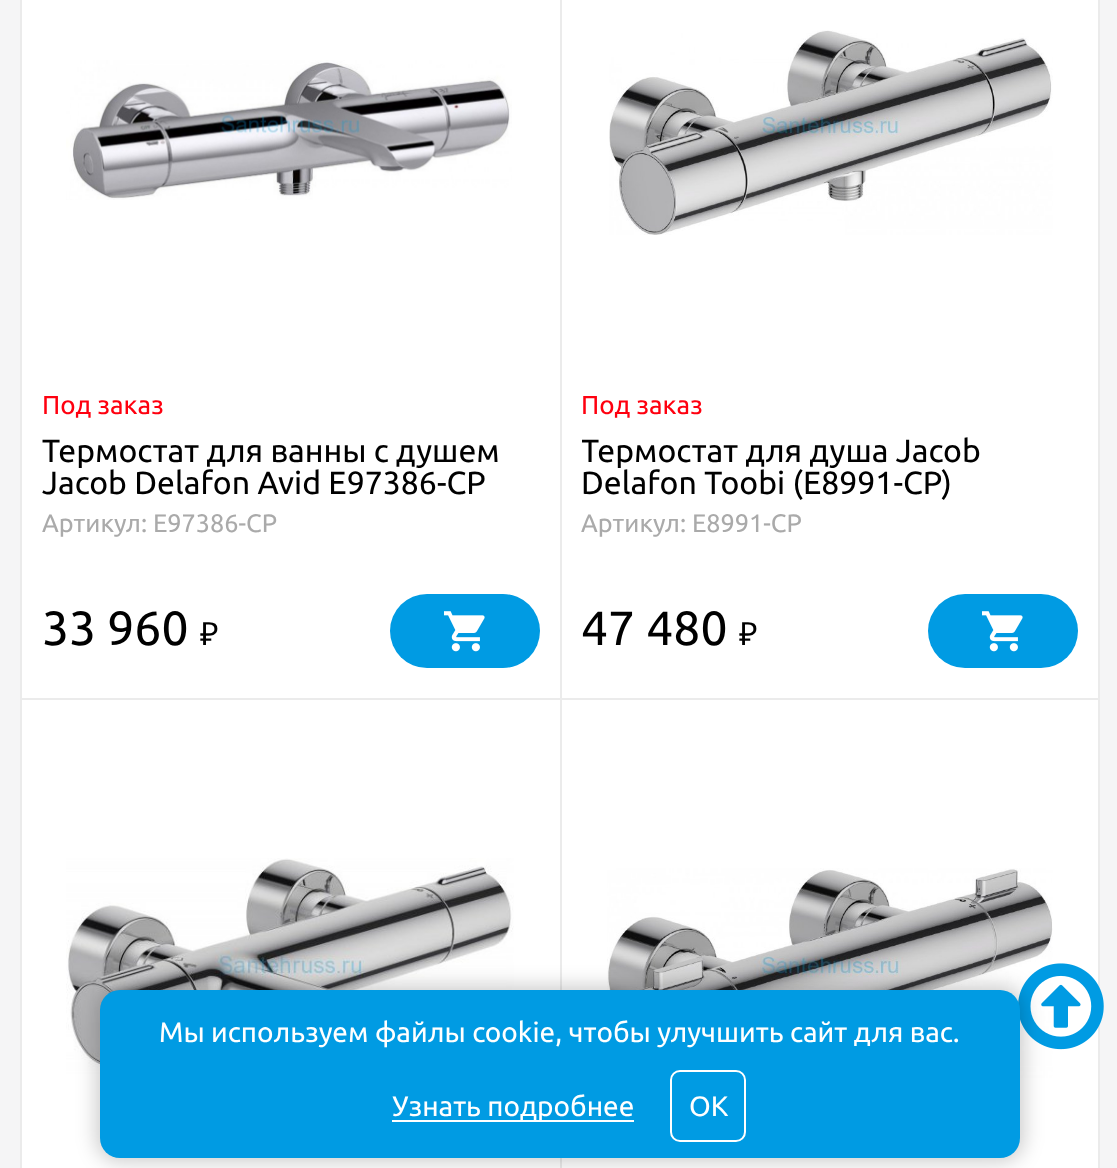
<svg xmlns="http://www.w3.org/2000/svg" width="1117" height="1168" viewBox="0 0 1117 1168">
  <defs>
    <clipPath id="clip1"><rect x="582" y="434" width="496" height="68"/></clipPath>
    <filter id="blur1" x="-50%" y="-200%" width="200%" height="500%"><feGaussianBlur stdDeviation="10"/></filter>
  </defs>
  <rect width="100%" height="100%" fill="#f5f5f6"/>
  <rect x="22" y="0" width="538" height="1168" fill="#ffffff"/>
  <rect x="21" y="-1" width="1076" height="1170" fill="none" stroke="#ebebeb" stroke-width="2"/>
  <rect x="560" y="0" width="2" height="1168" fill="#ebebeb"/>
  <rect x="22" y="698" width="540" height="2" fill="#ebebeb"/>
  <image x="66" y="60" width="446" height="140" href="img1.png"/>
  <text x="42" y="414" font-family="Ubuntu" font-size="26" fill="#ff000f">Под заказ</text>
  <text x="42" y="462" font-family="Ubuntu" font-size="32" fill="#000000">Термостат для ванны с душем</text>
  <text x="42" y="494" font-family="Ubuntu" font-size="32" fill="#000000">Jacob Delafon Avid E97386-CP</text>
  <text x="42" y="532" font-family="Ubuntu" font-size="25.25" fill="#aaaaaa">Артикул: E97386-CP</text>
  <text x="42" y="645" font-family="Ubuntu" font-size="48" fill="#000000">33 960</text>
  <text x="200" y="645" font-family="Noto Sans" font-size="32" fill="#000000">₽</text>
  <rect x="390" y="594" width="150" height="74" rx="37" fill="#009be3"/>
  <image x="444" y="611" width="41" height="41" href="img2.png"/>
  <rect x="562" y="0" width="536" height="698" fill="#ffffff"/>
  <rect x="1098" y="0" width="2" height="1168" fill="#ebebeb"/>
  <rect x="562" y="698" width="538" height="2" fill="#ebebeb"/>
  <image x="609" y="30" width="444" height="205" href="img3.png"/>
  <text x="581" y="414" font-family="Ubuntu" font-size="26" fill="#ff000f">Под заказ</text>
  <g clip-path="url(#clip1)">
    <text x="581" y="462" font-family="Ubuntu" font-size="32" fill="#000000">Термостат для душа Jacob</text>
  </g>
  <text x="581" y="494" font-family="Ubuntu" font-size="32" fill="#000000">Delafon Toobi (E8991-CP)</text>
  <text x="581" y="532" font-family="Ubuntu" font-size="25.25" fill="#aaaaaa">Артикул: E8991-CP</text>
  <text x="581" y="645" font-family="Ubuntu" font-size="48" fill="#000000">47 480</text>
  <text x="739" y="645" font-family="Noto Sans" font-size="32" fill="#000000">₽</text>
  <rect x="928" y="594" width="150" height="74" rx="37" fill="#009be3"/>
  <image x="982" y="611" width="41" height="41" href="img2.png"/>
  <image x="66" y="858" width="448" height="217" href="img4.png"/>
  <rect x="562" y="700" width="536" height="468" fill="#ffffff"/>
  <image x="607" y="868" width="446" height="210" href="img5.png"/>
  <image x="1018" y="963" width="86" height="87" href="img6.png"/>
  <rect x="96" y="986" width="928" height="176" rx="24" fill="#000000" fill-opacity="0.2" filter="url(#blur1)"/>
  <rect x="100" y="990" width="920" height="168" rx="20" fill="#009be3"/>
  <text x="159" y="1042" font-family="Ubuntu" font-size="28" fill="#ffffff">Мы используем файлы cookie, чтобы улучшить сайт для вас.</text>
  <text x="392" y="1116" font-family="Ubuntu" font-size="28" fill="#ffffff">Узнать подробнее</text>
  <rect x="392" y="1120" width="242" height="2" fill="#ffffff"/>
  <rect x="671" y="1071" width="74" height="70" rx="9" fill="none" stroke="#ffffff" stroke-width="2"/>
  <text x="689" y="1116" font-family="Ubuntu" font-size="28" fill="#ffffff">OK</text>
</svg>
